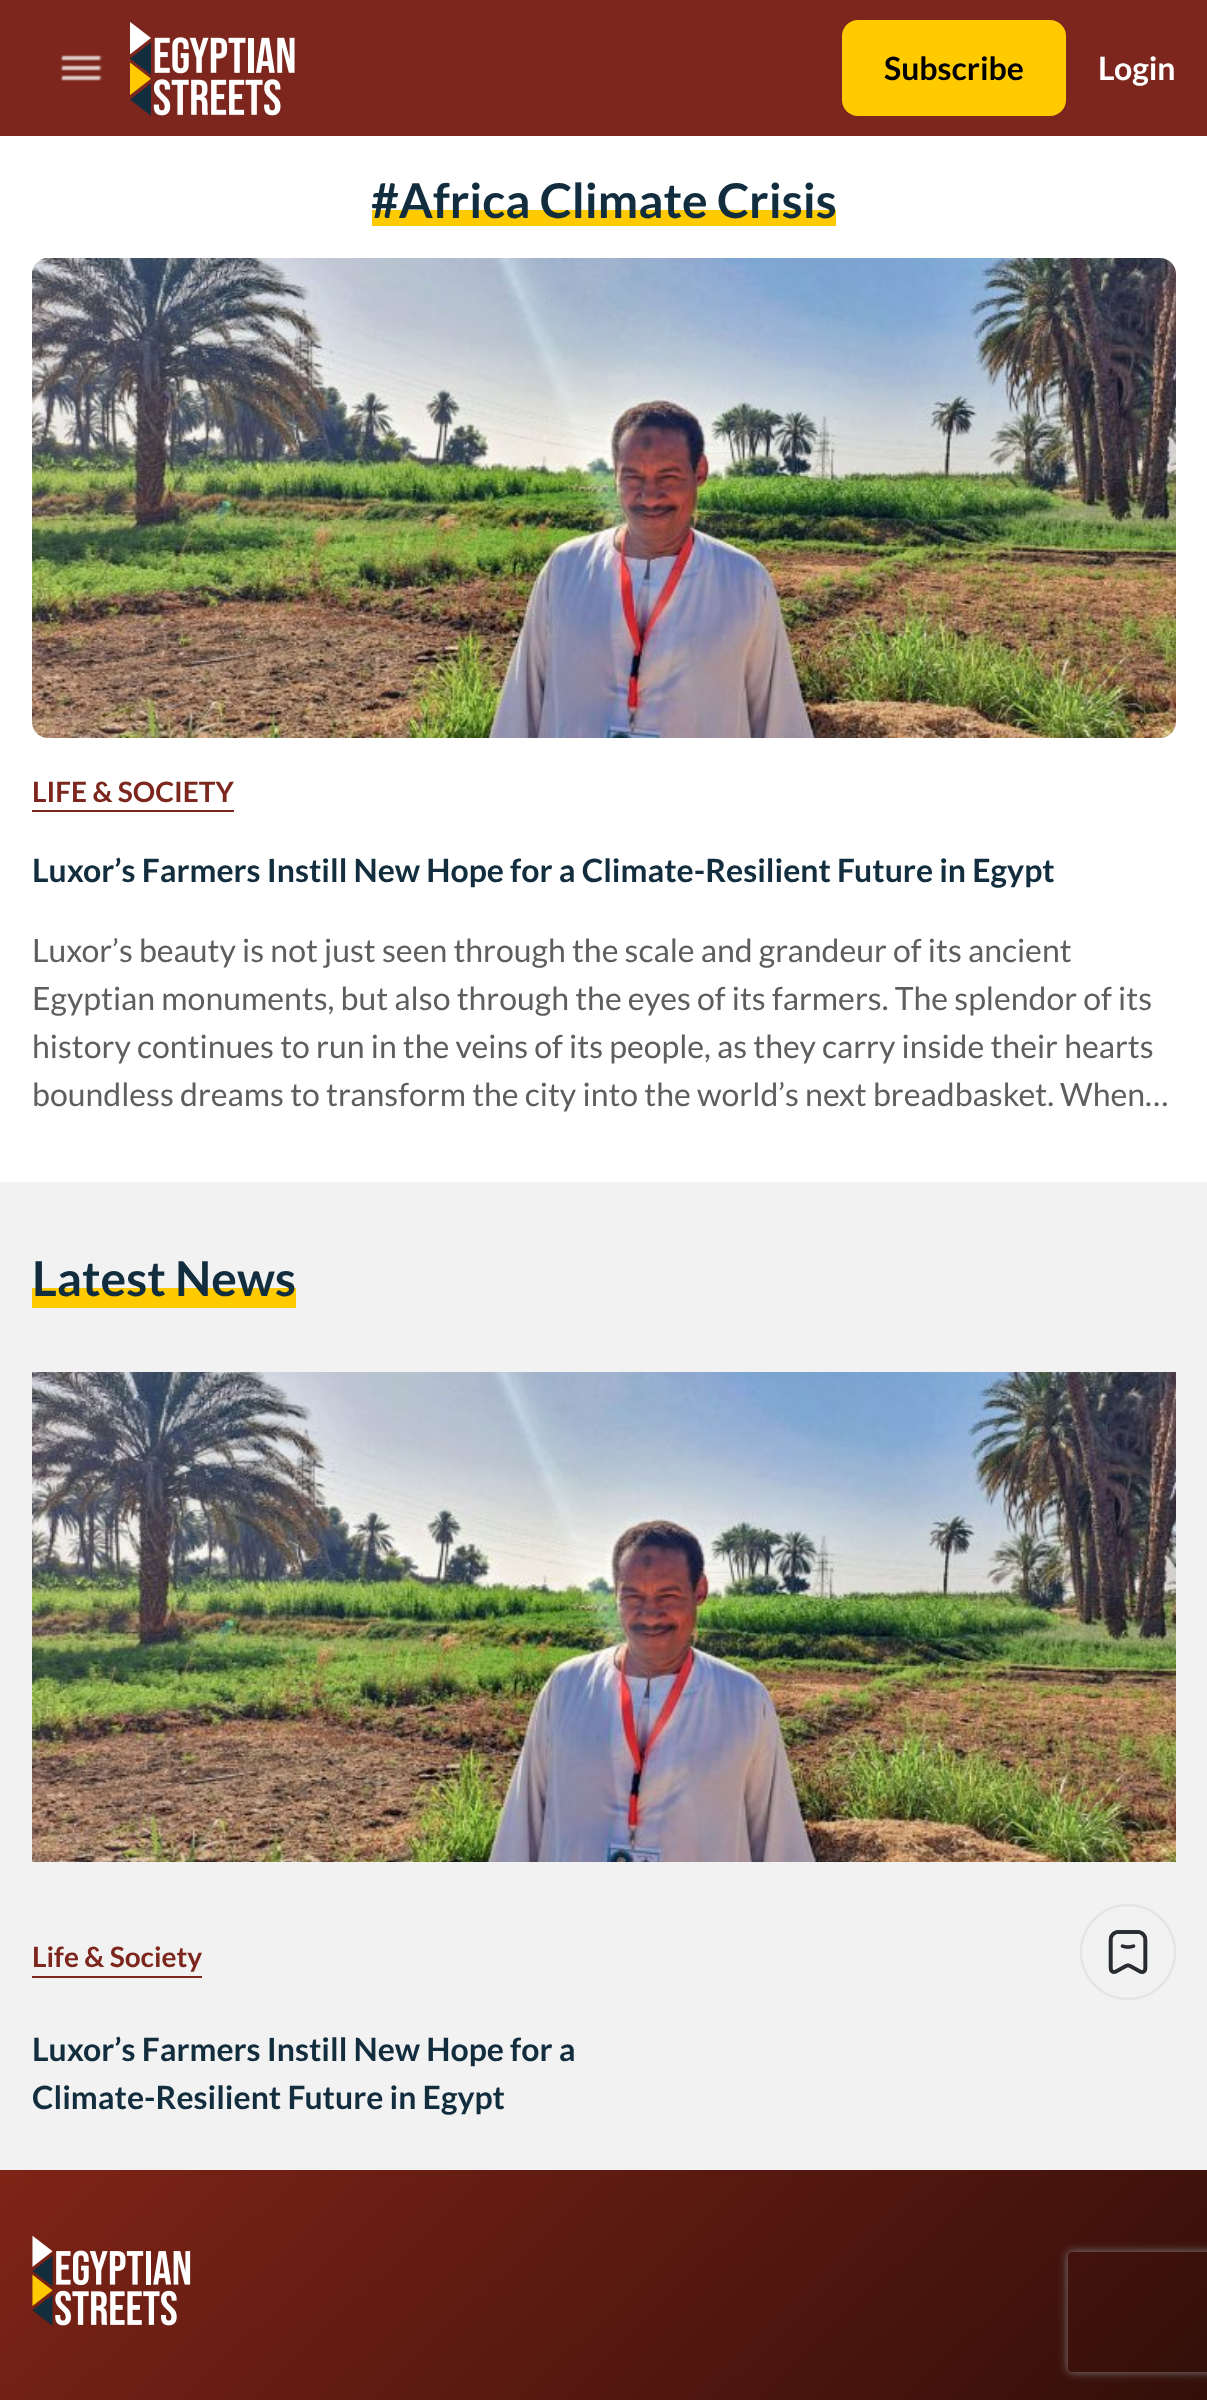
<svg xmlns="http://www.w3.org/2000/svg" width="1207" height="2400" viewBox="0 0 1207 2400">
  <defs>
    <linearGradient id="g1" gradientUnits="userSpaceOnUse" x1="31" y1="2141" x2="1177" y2="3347"><stop offset="0" stop-color="#7f2417"/><stop offset="1" stop-color="#000000"/></linearGradient>
    <clipPath id="clip1"><path d="M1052 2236H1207V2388H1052ZM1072 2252H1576C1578 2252 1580 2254 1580 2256V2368C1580 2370 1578 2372 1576 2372H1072C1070 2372 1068 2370 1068 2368V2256C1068 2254 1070 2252 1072 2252Z" clip-rule="evenodd"/></clipPath>
    <filter id="blur1" x="-50%" y="-200%" width="200%" height="500%"><feGaussianBlur stdDeviation="5"/></filter>
  </defs>
  <rect width="100%" height="100%" fill="#ffffff"/>
  <rect x="0" y="0" width="1207" height="136" fill="#7c261d"/>
  <image x="60" y="55" width="43" height="26" href="img1.png"/>
  <image x="130" y="21" width="165" height="95" href="img2.png"/>
  <rect x="842" y="20" width="224" height="96" rx="16" fill="#ffcb00"/>
  <text x="884" y="80" font-family="Lato" font-size="32" font-weight="bold" fill="#000000">Subscribe</text>
  <text x="1098" y="80" font-family="Lato" font-size="32" font-weight="bold" fill="#ffffff">Login</text>
  <rect x="372" y="210" width="464" height="16" fill="#ffcb00"/>
  <text x="371" y="218" font-family="Lato" font-size="48" font-weight="bold" fill="#122d3d">#Africa Climate Crisis</text>
  <image x="32" y="258" width="1144" height="480" href="img3.png"/>
  <text x="32" y="802" font-family="Lato" font-size="28" font-weight="bold" fill="#7c261d">LIFE &amp; SOCIETY</text>
  <rect x="32" y="810" width="202" height="2" fill="#7c261d"/>
  <text x="32" y="882" font-family="Lato" font-size="32" font-weight="bold" fill="#122d3d">Luxor’s Farmers Instill New Hope for a Climate-Resilient Future in Egypt</text>
  <text x="32" y="962" font-family="Lato" font-size="32" fill="#5e5e5e">Luxor’s beauty is not just seen through the scale and grandeur of its ancient</text>
  <text x="32" y="1010" font-family="Lato" font-size="32" fill="#5e5e5e">Egyptian monuments, but also through the eyes of its farmers. The splendor of its</text>
  <text x="32" y="1058" font-family="Lato" font-size="32" fill="#5e5e5e">history continues to run in the veins of its people, as they carry inside their hearts</text>
  <text x="32" y="1106" font-family="Lato" font-size="32" fill="#5e5e5e">boundless dreams to transform the city into the world’s next breadbasket. When…</text>
  <rect x="0" y="1182" width="1207" height="988" fill="#f2f2f2"/>
  <rect x="32" y="1288" width="264" height="20" fill="#ffcb00"/>
  <text x="32" y="1296" font-family="Lato" font-size="48" font-weight="bold" fill="#122d3d">Latest News</text>
  <image x="32" y="1372" width="1144" height="490" href="img4.png"/>
  <text x="32" y="1967" font-family="Lato" font-size="28" font-weight="bold" fill="#7c261d">Life &amp; Society</text>
  <rect x="32" y="1976" width="170" height="2" fill="#7c261d"/>
  <image x="1080" y="1904" width="96" height="96" href="img5.png"/>
  <text x="32" y="2061" font-family="Lato" font-size="32" font-weight="bold" fill="#122d3d">Luxor’s Farmers Instill New Hope for a</text>
  <text x="32" y="2109" font-family="Lato" font-size="32" font-weight="bold" fill="#122d3d">Climate-Resilient Future in Egypt</text>
  <rect x="0" y="2170" width="1207" height="230" fill="url(#g1)"/>
  <image x="32" y="2235" width="159" height="91" href="img6.png"/>
  <g clip-path="url(#clip1)">
    <rect x="1068" y="2252" width="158" height="120" rx="4" fill="#808080" filter="url(#blur1)"/>
  </g>
</svg>
